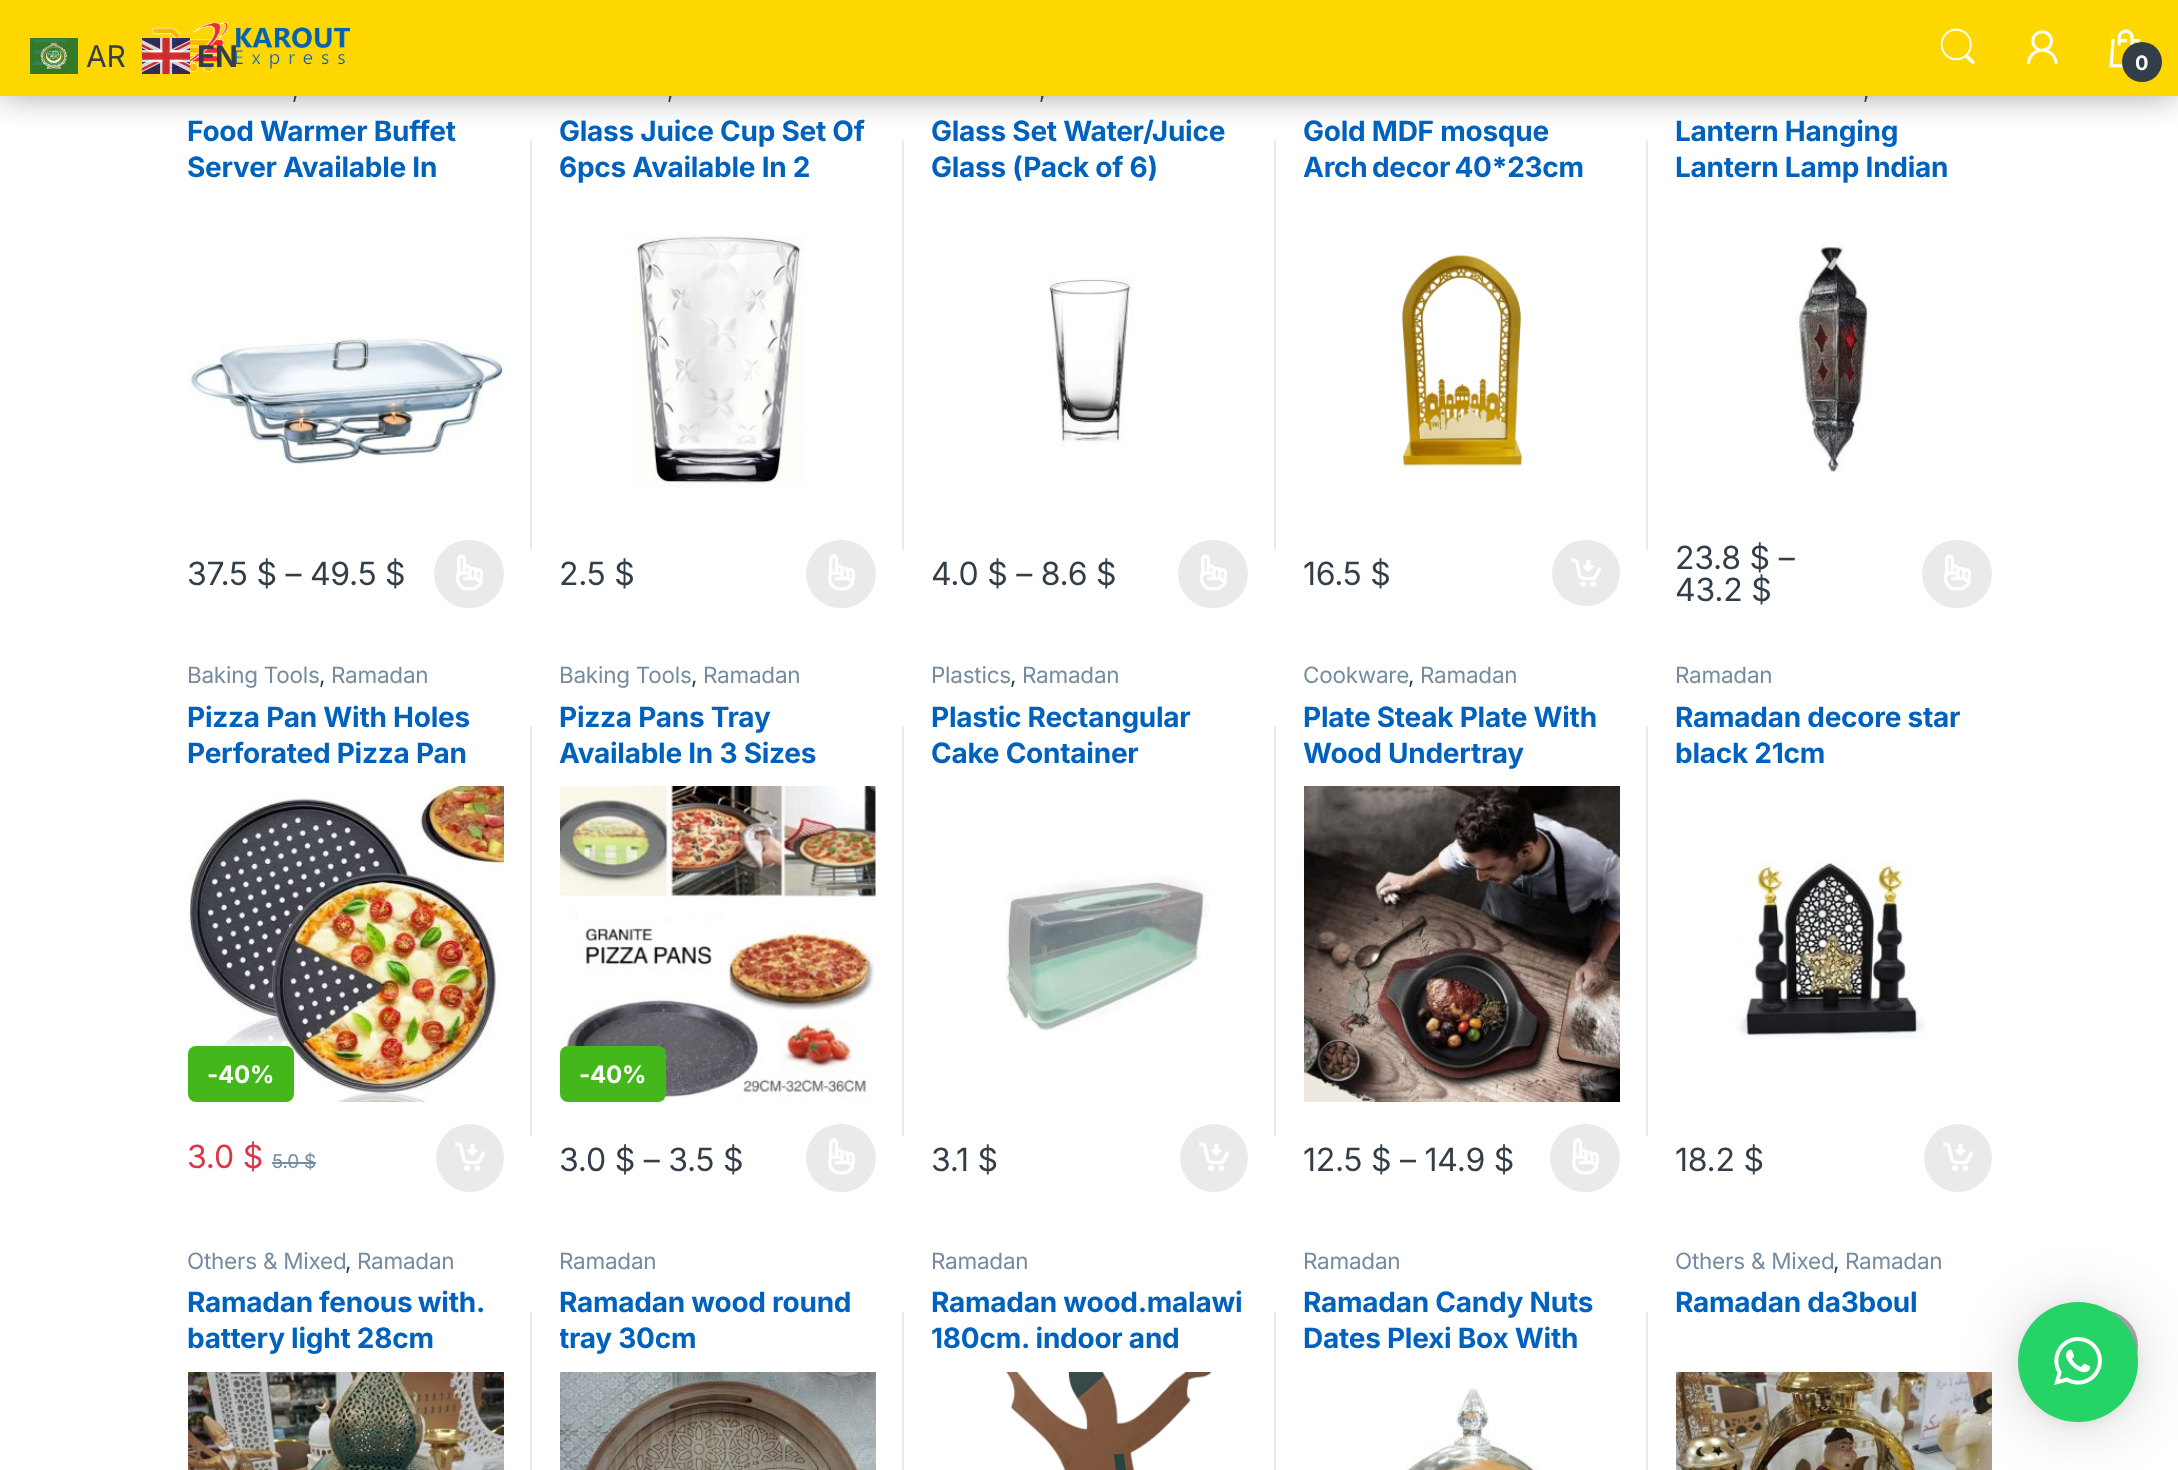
<svg xmlns="http://www.w3.org/2000/svg" width="2178" height="1470" viewBox="0 0 2178 1470">
  <defs>
    <filter id="blur1" x="-50%" y="-200%" width="200%" height="500%"><feGaussianBlur stdDeviation="17"/></filter>
    <clipPath id="clip1"><rect x="560" y="1284" width="316" height="72"/></clipPath>
    <filter id="blur2" x="-50%" y="-200%" width="200%" height="500%"><feGaussianBlur stdDeviation="32"/></filter>
    <filter id="blur3" x="-50%" y="-200%" width="200%" height="500%"><feGaussianBlur stdDeviation="6"/></filter>
  </defs>
  <rect width="100%" height="100%" fill="#ffffff"/>
  <rect x="530" y="140" width="2" height="410" fill="#eaeaea"/>
  <rect x="902" y="140" width="2" height="410" fill="#eaeaea"/>
  <rect x="1274" y="140" width="2" height="410" fill="#eaeaea"/>
  <rect x="1646" y="140" width="2" height="410" fill="#eaeaea"/>
  <rect x="2" y="2" width="2174" height="92" fill="#000000" fill-opacity="0.4" filter="url(#blur1)"/>
  <text x="292" y="98" font-family="Inter" font-size="22.5" letter-spacing="-0.25" fill="#333e48">,</text>
  <text x="667" y="98" font-family="Inter" font-size="22.5" letter-spacing="-0.25" fill="#333e48">,</text>
  <text x="1039" y="98" font-family="Inter" font-size="22.5" letter-spacing="-0.25" fill="#333e48">,</text>
  <text x="1863" y="98" font-family="Inter" font-size="22.5" letter-spacing="-0.25" fill="#333e48">,</text>
  <rect x="0" y="0" width="2178" height="96" fill="#fed700"/>
  <image x="33" y="39" width="34" height="26" href="img3.png"/>
  <image x="30" y="38" width="48" height="36" href="img1.png"/>
  <text x="86" y="67" font-family="Inter" font-size="30" letter-spacing="-0.25" fill="#333e48">AR</text>
  <image x="152" y="22" width="198" height="50" href="img4.png"/>
  <image x="142" y="38" width="48" height="36" href="img2.png"/>
  <text x="197" y="67" font-family="Inter" font-size="30" font-weight="bold" letter-spacing="-0.25" fill="#333e48">EN</text>
  <image x="1940" y="28" width="36" height="37" href="img5.png"/>
  <image x="2026" y="30" width="32" height="35" href="img6.png"/>
  <image x="2109" y="29" width="32" height="39" href="img7.png"/>
  <circle cx="2142" cy="62" r="20" fill="#333e48"/>
  <text x="2135" y="70" font-family="Inter" font-size="20" font-weight="bold" letter-spacing="-0.25" fill="#ffffff">0</text>
  <text x="187" y="141" font-family="Inter" font-size="28" font-weight="bold" letter-spacing="-0.25" fill="#0062bd">Food Warmer Buffet</text>
  <text x="187" y="177" font-family="Inter" font-size="28" font-weight="bold" letter-spacing="-0.25" fill="#0062bd">Server Available In</text>
  <image x="188" y="337" width="316" height="128" href="img8.png"/>
  <text x="187" y="585" font-family="Inter" font-size="32" letter-spacing="-0.25" fill="#333e48">37.5 $ – 49.5 $</text>
  <rect x="434" y="540" width="70" height="68" rx="34" fill="#eaeaea"/>
  <image x="456" y="554" width="27" height="37" href="img9.png"/>
  <text x="559" y="141" font-family="Inter" font-size="28" font-weight="bold" letter-spacing="-0.25" fill="#0062bd">Glass Juice Cup Set Of</text>
  <text x="559" y="177" font-family="Inter" font-size="28" font-weight="bold" letter-spacing="-0.25" fill="#0062bd">6pcs Available In 2</text>
  <image x="628" y="235" width="177" height="254" href="img10.png"/>
  <text x="559" y="585" font-family="Inter" font-size="32" letter-spacing="-0.25" fill="#333e48">2.5 $</text>
  <rect x="806" y="540" width="70" height="68" rx="34" fill="#eaeaea"/>
  <image x="828" y="554" width="27" height="37" href="img9.png"/>
  <text x="931" y="141" font-family="Inter" font-size="28" font-weight="bold" letter-spacing="-0.25" fill="#0062bd">Glass Set Water/Juice</text>
  <text x="931" y="177" font-family="Inter" font-size="28" font-weight="bold" letter-spacing="-0.25" fill="#0062bd">Glass (Pack of 6)</text>
  <image x="1048" y="278" width="86" height="168" href="img11.png"/>
  <text x="931" y="585" font-family="Inter" font-size="32" letter-spacing="-0.25" fill="#333e48">4.0 $ – 8.6 $</text>
  <rect x="1178" y="540" width="70" height="68" rx="34" fill="#eaeaea"/>
  <image x="1200" y="554" width="27" height="37" href="img9.png"/>
  <text x="1303" y="141" font-family="Inter" font-size="28" font-weight="bold" letter-spacing="-0.25" fill="#0062bd">Gold MDF mosque</text>
  <text x="1303" y="177" word-spacing="-2" font-family="Inter" font-size="28" font-weight="bold" letter-spacing="-0.25" fill="#0062bd">Arch decor 40*23cm</text>
  <image x="1401" y="254" width="122" height="212" href="img12.png"/>
  <text x="1303" y="585" font-family="Inter" font-size="32" letter-spacing="-0.25" fill="#333e48">16.5 $</text>
  <rect x="1552" y="540" width="68" height="66" rx="33" fill="#eaeaea"/>
  <image x="1571" y="558" width="31" height="29" href="img13.png"/>
  <text x="1675" y="141" font-family="Inter" font-size="28" font-weight="bold" letter-spacing="-0.25" fill="#0062bd">Lantern Hanging</text>
  <text x="1675" y="177" font-family="Inter" font-size="28" font-weight="bold" letter-spacing="-0.25" fill="#0062bd">Lantern Lamp Indian</text>
  <image x="1794" y="244" width="76" height="228" href="img14.png"/>
  <text x="1675" y="569" font-family="Inter" font-size="32" letter-spacing="-0.25" fill="#333e48">23.8 $ –</text>
  <text x="1675" y="601" font-family="Inter" font-size="32" letter-spacing="-0.25" fill="#333e48">43.2 $</text>
  <rect x="1922" y="540" width="70" height="68" rx="34" fill="#eaeaea"/>
  <image x="1944" y="554" width="27" height="37" href="img9.png"/>
  <text x="187" y="683" font-family="Inter" font-size="22.5" letter-spacing="-0.25" fill="#768b9e">Baking Tools</text>
  <text x="319" y="683" font-family="Inter" font-size="22.5" letter-spacing="-0.25" fill="#333e48">,</text>
  <text x="331" y="683" font-family="Inter" font-size="22.5" letter-spacing="-0.25" fill="#768b9e">Ramadan</text>
  <text x="187" y="727" font-family="Inter" font-size="28" font-weight="bold" letter-spacing="-0.25" fill="#0062bd">Pizza Pan With Holes</text>
  <text x="187" y="763" font-family="Inter" font-size="28" font-weight="bold" letter-spacing="-0.25" fill="#0062bd">Perforated Pizza Pan</text>
  <image x="188" y="786" width="316" height="316" href="img15.png"/>
  <rect x="188" y="1046" width="106" height="56" rx="8" fill="#44b81b"/>
  <text x="207" y="1083" font-family="Inter" font-size="24" font-weight="bold" letter-spacing="-0.25" fill="#ffffff">-40%</text>
  <text x="187" y="1168" font-family="Inter" font-size="32" letter-spacing="-0.25" fill="#dc3545">3.0 $</text>
  <text x="272" y="1168" font-family="Inter" font-size="19" letter-spacing="-0.25" fill="#768b9e">5.0 $</text>
  <rect x="272" y="1162" width="44" height="2" fill="#768b9e"/>
  <circle cx="470" cy="1158" r="34" fill="#eaeaea"/>
  <image x="455" y="1142" width="31" height="29" href="img13.png"/>
  <rect x="530" y="726" width="2" height="410" fill="#eaeaea"/>
  <text x="559" y="683" font-family="Inter" font-size="22.5" letter-spacing="-0.25" fill="#768b9e">Baking Tools</text>
  <text x="691" y="683" font-family="Inter" font-size="22.5" letter-spacing="-0.25" fill="#333e48">,</text>
  <text x="703" y="683" font-family="Inter" font-size="22.5" letter-spacing="-0.25" fill="#768b9e">Ramadan</text>
  <text x="559" y="727" font-family="Inter" font-size="28" font-weight="bold" letter-spacing="-0.25" fill="#0062bd">Pizza Pans Tray</text>
  <text x="559" y="763" font-family="Inter" font-size="28" font-weight="bold" letter-spacing="-0.25" fill="#0062bd">Available In 3 Sizes</text>
  <image x="560" y="786" width="316" height="312" href="img16.png"/>
  <rect x="560" y="1046" width="106" height="56" rx="8" fill="#44b81b"/>
  <text x="579" y="1083" font-family="Inter" font-size="24" font-weight="bold" letter-spacing="-0.25" fill="#ffffff">-40%</text>
  <text x="559" y="1171" font-family="Inter" font-size="32" letter-spacing="-0.25" fill="#333e48">3.0 $ – 3.5 $</text>
  <rect x="806" y="1124" width="70" height="68" rx="34" fill="#eaeaea"/>
  <image x="828" y="1138" width="27" height="37" href="img9.png"/>
  <rect x="902" y="726" width="2" height="410" fill="#eaeaea"/>
  <text x="931" y="683" font-family="Inter" font-size="22.5" letter-spacing="-0.25" fill="#768b9e">Plastics</text>
  <text x="1010" y="683" font-family="Inter" font-size="22.5" letter-spacing="-0.25" fill="#333e48">,</text>
  <text x="1022" y="683" font-family="Inter" font-size="22.5" letter-spacing="-0.25" fill="#768b9e">Ramadan</text>
  <text x="931" y="727" font-family="Inter" font-size="28" font-weight="bold" letter-spacing="-0.25" fill="#0062bd">Plastic Rectangular</text>
  <text x="931" y="763" font-family="Inter" font-size="28" font-weight="bold" letter-spacing="-0.25" fill="#0062bd">Cake Container</text>
  <image x="1004" y="874" width="205" height="157" href="img17.png"/>
  <text x="931" y="1171" font-family="Inter" font-size="32" letter-spacing="-0.25" fill="#333e48">3.1 $</text>
  <circle cx="1214" cy="1158" r="34" fill="#eaeaea"/>
  <image x="1199" y="1142" width="31" height="29" href="img13.png"/>
  <rect x="1274" y="726" width="2" height="410" fill="#eaeaea"/>
  <text x="1303" y="683" font-family="Inter" font-size="22.5" letter-spacing="-0.25" fill="#768b9e">Cookware</text>
  <text x="1408" y="683" font-family="Inter" font-size="22.5" letter-spacing="-0.25" fill="#333e48">,</text>
  <text x="1420" y="683" font-family="Inter" font-size="22.5" letter-spacing="-0.25" fill="#768b9e">Ramadan</text>
  <text x="1303" y="727" font-family="Inter" font-size="28" font-weight="bold" letter-spacing="-0.25" fill="#0062bd">Plate Steak Plate With</text>
  <text x="1303" y="763" font-family="Inter" font-size="28" font-weight="bold" letter-spacing="-0.25" fill="#0062bd">Wood Undertray</text>
  <image x="1304" y="786" width="316" height="316" href="img18.png"/>
  <text x="1303" y="1171" font-family="Inter" font-size="32" letter-spacing="-0.25" fill="#333e48">12.5 $ – 14.9 $</text>
  <rect x="1550" y="1124" width="70" height="68" rx="34" fill="#eaeaea"/>
  <image x="1572" y="1138" width="27" height="37" href="img9.png"/>
  <rect x="1646" y="726" width="2" height="410" fill="#eaeaea"/>
  <text x="1675" y="683" font-family="Inter" font-size="22.5" letter-spacing="-0.25" fill="#768b9e">Ramadan</text>
  <text x="1675" y="727" font-family="Inter" font-size="28" font-weight="bold" letter-spacing="-0.25" fill="#0062bd">Ramadan decore star</text>
  <text x="1675" y="763" font-family="Inter" font-size="28" font-weight="bold" letter-spacing="-0.25" fill="#0062bd">black 21cm</text>
  <image x="1735" y="858" width="190" height="181" href="img19.png"/>
  <text x="1675" y="1171" font-family="Inter" font-size="32" letter-spacing="-0.25" fill="#333e48">18.2 $</text>
  <circle cx="1958" cy="1158" r="34" fill="#eaeaea"/>
  <image x="1943" y="1142" width="31" height="29" href="img13.png"/>
  <text x="187" y="1269" font-family="Inter" font-size="22.5" letter-spacing="-0.25" fill="#768b9e">Others &amp; Mixed</text>
  <text x="345" y="1269" font-family="Inter" font-size="22.5" letter-spacing="-0.25" fill="#333e48">,</text>
  <text x="357" y="1269" font-family="Inter" font-size="22.5" letter-spacing="-0.25" fill="#768b9e">Ramadan</text>
  <text x="187" y="1312" font-family="Inter" font-size="28" font-weight="bold" letter-spacing="-0.25" fill="#0062bd">Ramadan</text>
  <text x="319" y="1312" word-spacing="-1" font-family="Inter" font-size="28" font-weight="bold" letter-spacing="-0.25" fill="#0062bd">fenous with.</text>
  <text x="187" y="1348" font-family="Inter" font-size="28" font-weight="bold" letter-spacing="-0.25" fill="#0062bd">battery light 28cm</text>
  <image x="188" y="1372" width="316" height="98" href="img20.png"/>
  <rect x="530" y="1312" width="2" height="158" fill="#eaeaea"/>
  <text x="559" y="1269" font-family="Inter" font-size="22.5" letter-spacing="-0.25" fill="#768b9e">Ramadan</text>
  <text x="559" y="1312" font-family="Inter" font-size="28" font-weight="bold" letter-spacing="-0.25" fill="#0062bd">Ramadan wood round</text>
  <g clip-path="url(#clip1)">
    <text x="559" y="1348" font-family="Inter" font-size="28" font-weight="bold" letter-spacing="-0.25" fill="#0062bd">tray 30cm</text>
  </g>
  <image x="560" y="1372" width="316" height="98" href="img21.png"/>
  <rect x="902" y="1312" width="2" height="158" fill="#eaeaea"/>
  <text x="931" y="1269" font-family="Inter" font-size="22.5" letter-spacing="-0.25" fill="#768b9e">Ramadan</text>
  <text x="931" y="1312" font-family="Inter" font-size="28" font-weight="bold" letter-spacing="-0.25" fill="#0062bd">Ramadan wood.malawi</text>
  <text x="931" y="1348" font-family="Inter" font-size="28" font-weight="bold" letter-spacing="-0.25" fill="#0062bd">180cm. indoor and</text>
  <image x="1005" y="1372" width="207" height="98" href="img22.png"/>
  <rect x="1274" y="1312" width="2" height="158" fill="#eaeaea"/>
  <text x="1303" y="1269" font-family="Inter" font-size="22.5" letter-spacing="-0.25" fill="#768b9e">Ramadan</text>
  <text x="1303" y="1312" font-family="Inter" font-size="28" font-weight="bold" letter-spacing="-0.25" fill="#0062bd">Ramadan Candy Nuts</text>
  <text x="1303" y="1348" font-family="Inter" font-size="28" font-weight="bold" letter-spacing="-0.25" fill="#0062bd">Dates Plexi Box With</text>
  <image x="1406" y="1387" width="133" height="83" href="img23.png"/>
  <rect x="1646" y="1312" width="2" height="158" fill="#eaeaea"/>
  <text x="1675" y="1269" font-family="Inter" font-size="22.5" letter-spacing="-0.25" fill="#768b9e">Others &amp; Mixed</text>
  <text x="1833" y="1269" font-family="Inter" font-size="22.5" letter-spacing="-0.25" fill="#333e48">,</text>
  <text x="1845" y="1269" font-family="Inter" font-size="22.5" letter-spacing="-0.25" fill="#768b9e">Ramadan</text>
  <text x="1675" y="1312" font-family="Inter" font-size="28" font-weight="bold" letter-spacing="-0.25" fill="#0062bd">Ramadan da3boul</text>
  <image x="1676" y="1372" width="316" height="98" href="img24.png"/>
  <circle cx="2102" cy="1346" r="35" fill="#a7acb1" stroke="#a7acb1" stroke-width="2"/>
  <rect x="2018" y="1306" width="120" height="120" rx="60" fill="#000000" fill-opacity="0.16" filter="url(#blur2)"/>
  <rect x="2018" y="1304" width="120" height="120" rx="60" fill="#000000" fill-opacity="0.06" filter="url(#blur3)"/>
  <circle cx="2078" cy="1362" r="60" fill="#25d366"/>
  <image x="2054" y="1337" width="48" height="48" href="img25.png"/>
</svg>
